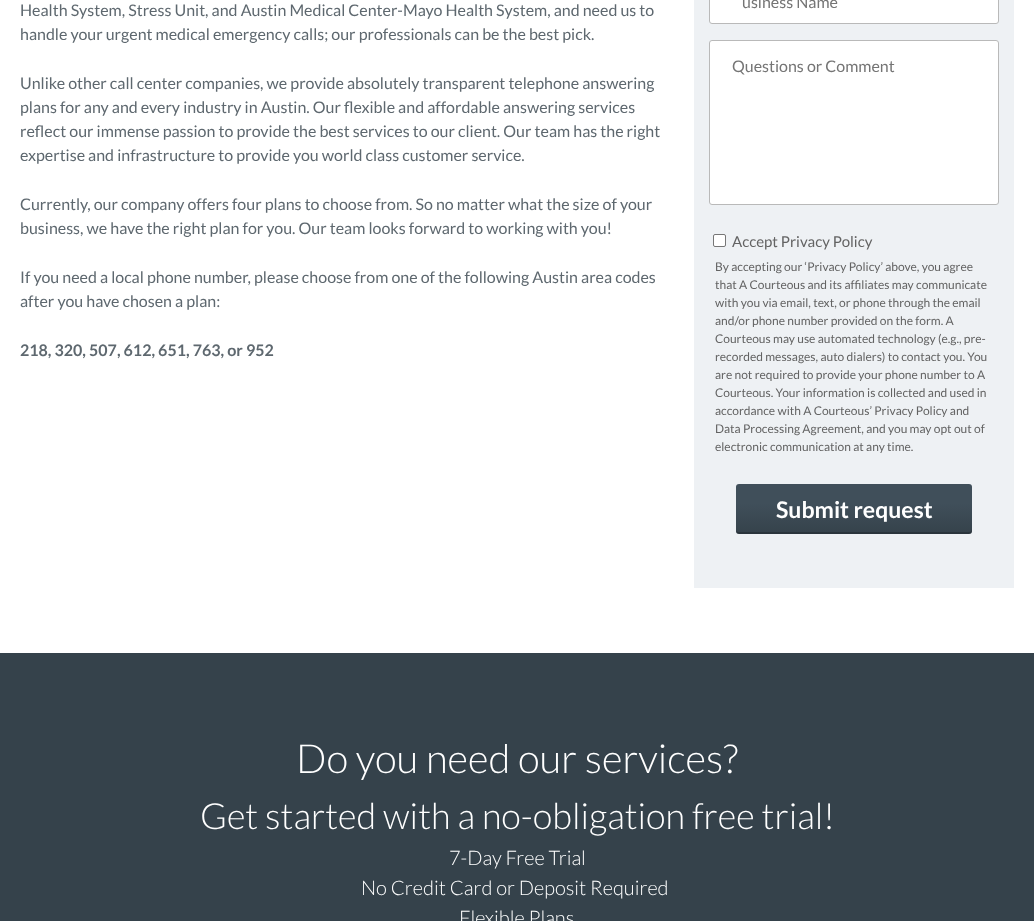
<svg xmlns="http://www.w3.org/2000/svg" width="1034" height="921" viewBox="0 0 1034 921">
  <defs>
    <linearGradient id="g1" gradientUnits="userSpaceOnUse" x1="854" y1="484" x2="854" y2="534"><stop offset="0.39" stop-color="#404f5a"/><stop offset="1" stop-color="#35424b"/></linearGradient>
  </defs>
  <rect width="100%" height="100%" fill="#ffffff"/>
  <text x="20" y="16" font-family="Lato" font-size="16" fill="#5e686f">Health System, Stress Unit, and Austin Medical Center-Mayo Health System, and need us to</text>
  <text x="20" y="40" font-family="Lato" font-size="16" fill="#5e686f">handle your urgent medical emergency calls; our professionals can be the best pick.</text>
  <text x="20" y="89" font-family="Lato" font-size="16" fill="#5e686f">Unlike other call center companies, we provide absolutely transparent telephone answering</text>
  <text x="20" y="113" font-family="Lato" font-size="16" fill="#5e686f">plans for any and every industry in Austin. Our flexible and affordable answering services</text>
  <text x="20" y="137" font-family="Lato" font-size="16" fill="#5e686f">reflect our immense passion to provide the best services to our client. Our team has the right</text>
  <text x="20" y="161" font-family="Lato" font-size="16" fill="#5e686f">expertise and infrastructure to provide you world class customer service.</text>
  <text x="20" y="210" font-family="Lato" font-size="16" fill="#5e686f">Currently, our company offers four plans to choose from. So no matter what the size of your</text>
  <text x="20" y="234" font-family="Lato" font-size="16" fill="#5e686f">business, we have the right plan for you. Our team looks forward to working with you!</text>
  <text x="20" y="283" font-family="Lato" font-size="16" fill="#5e686f">If you need a local phone number, please choose from one of the following Austin area codes</text>
  <text x="20" y="307" font-family="Lato" font-size="16" fill="#5e686f">after you have chosen a plan:</text>
  <text x="20" y="356" font-family="Lato" font-size="16" font-weight="bold" fill="#5e686f">218, 320, 507, 612, 651, 763, or 952</text>
  <rect x="694" y="0" width="320" height="588" fill="#eef1f4"/>
  <rect x="709.5" y="-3.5" width="289" height="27" rx="2.5" fill="#ffffff" stroke="#b9b9b9"/>
  <text x="742" y="8" font-family="Lato" font-size="16" fill="#757575">usiness Name</text>
  <rect x="709.5" y="40.5" width="289" height="164" rx="2.5" fill="#ffffff" stroke="#b9b9b9"/>
  <text x="732" y="72" font-family="Lato" font-size="16" fill="#757575">Questions or Comment</text>
  <rect x="713.5" y="234.5" width="12" height="12" rx="1.5" fill="#ffffff" stroke="#767676"/>
  <text x="732" y="247" font-family="Lato" font-size="15" fill="#636363">Accept Privacy Policy</text>
  <text x="715" y="271" font-family="Lato" font-size="12" fill="#636363">By accepting our ‘Privacy Policy’ above, you agree</text>
  <text x="715" y="289" font-family="Lato" font-size="12" fill="#636363">that A Courteous and its affiliates may communicate</text>
  <text x="715" y="307" font-family="Lato" font-size="12" fill="#636363">with you via email, text, or phone through the email</text>
  <text x="715" y="325" font-family="Lato" font-size="12" fill="#636363">and/or phone number provided on the form. A</text>
  <text x="715" y="343" font-family="Lato" font-size="12" fill="#636363">Courteous may use automated technology (e.g., pre-</text>
  <text x="715" y="361" font-family="Lato" font-size="12" fill="#636363">recorded messages, auto dialers) to contact you. You</text>
  <text x="715" y="379" font-family="Lato" font-size="12" fill="#636363">are not required to provide your phone number to A</text>
  <text x="715" y="397" font-family="Lato" font-size="12" fill="#636363">Courteous. Your information is collected and used in</text>
  <text x="715" y="415" font-family="Lato" font-size="12" fill="#636363">accordance with A Courteous’ Privacy Policy and</text>
  <text x="715" y="433" font-family="Lato" font-size="12" fill="#636363">Data Processing Agreement, and you may opt out of</text>
  <text x="715" y="451" font-family="Lato" font-size="12" fill="#636363">electronic communication at any time.</text>
  <rect x="736" y="484" width="236" height="50" rx="3" fill="url(#g1)"/>
  <path d="M736 529V531C736 533 737 534 739 534H969C971 534 972 533 972 531V529C972 531 971 532 969 532H738L736 531Z" fill="#000000" fill-opacity="0.2"/>
  <text x="776" y="518" font-family="Lato" font-size="23" font-weight="bold" fill="#ffffff">Submit request</text>
  <rect x="0" y="653" width="1034" height="268" fill="#35424b"/>
  <text x="296" y="773" font-family="Lato" font-size="40" font-weight="300" fill="#ffffff">Do you need our services?</text>
  <text x="200" y="829" font-family="Lato" font-size="36" font-weight="300" fill="#ffffff">Get started with a no-obligation free trial!</text>
  <text x="449" y="865" font-family="Lato" font-size="20" font-weight="300" fill="#ffffff">7-Day Free Trial</text>
  <text x="361" y="895" font-family="Lato" font-size="20" font-weight="300" fill="#ffffff">No Credit Card or Deposit Required</text>
  <text x="459" y="925" font-family="Lato" font-size="20" font-weight="300" fill="#ffffff">Flexible Plans</text>
</svg>
